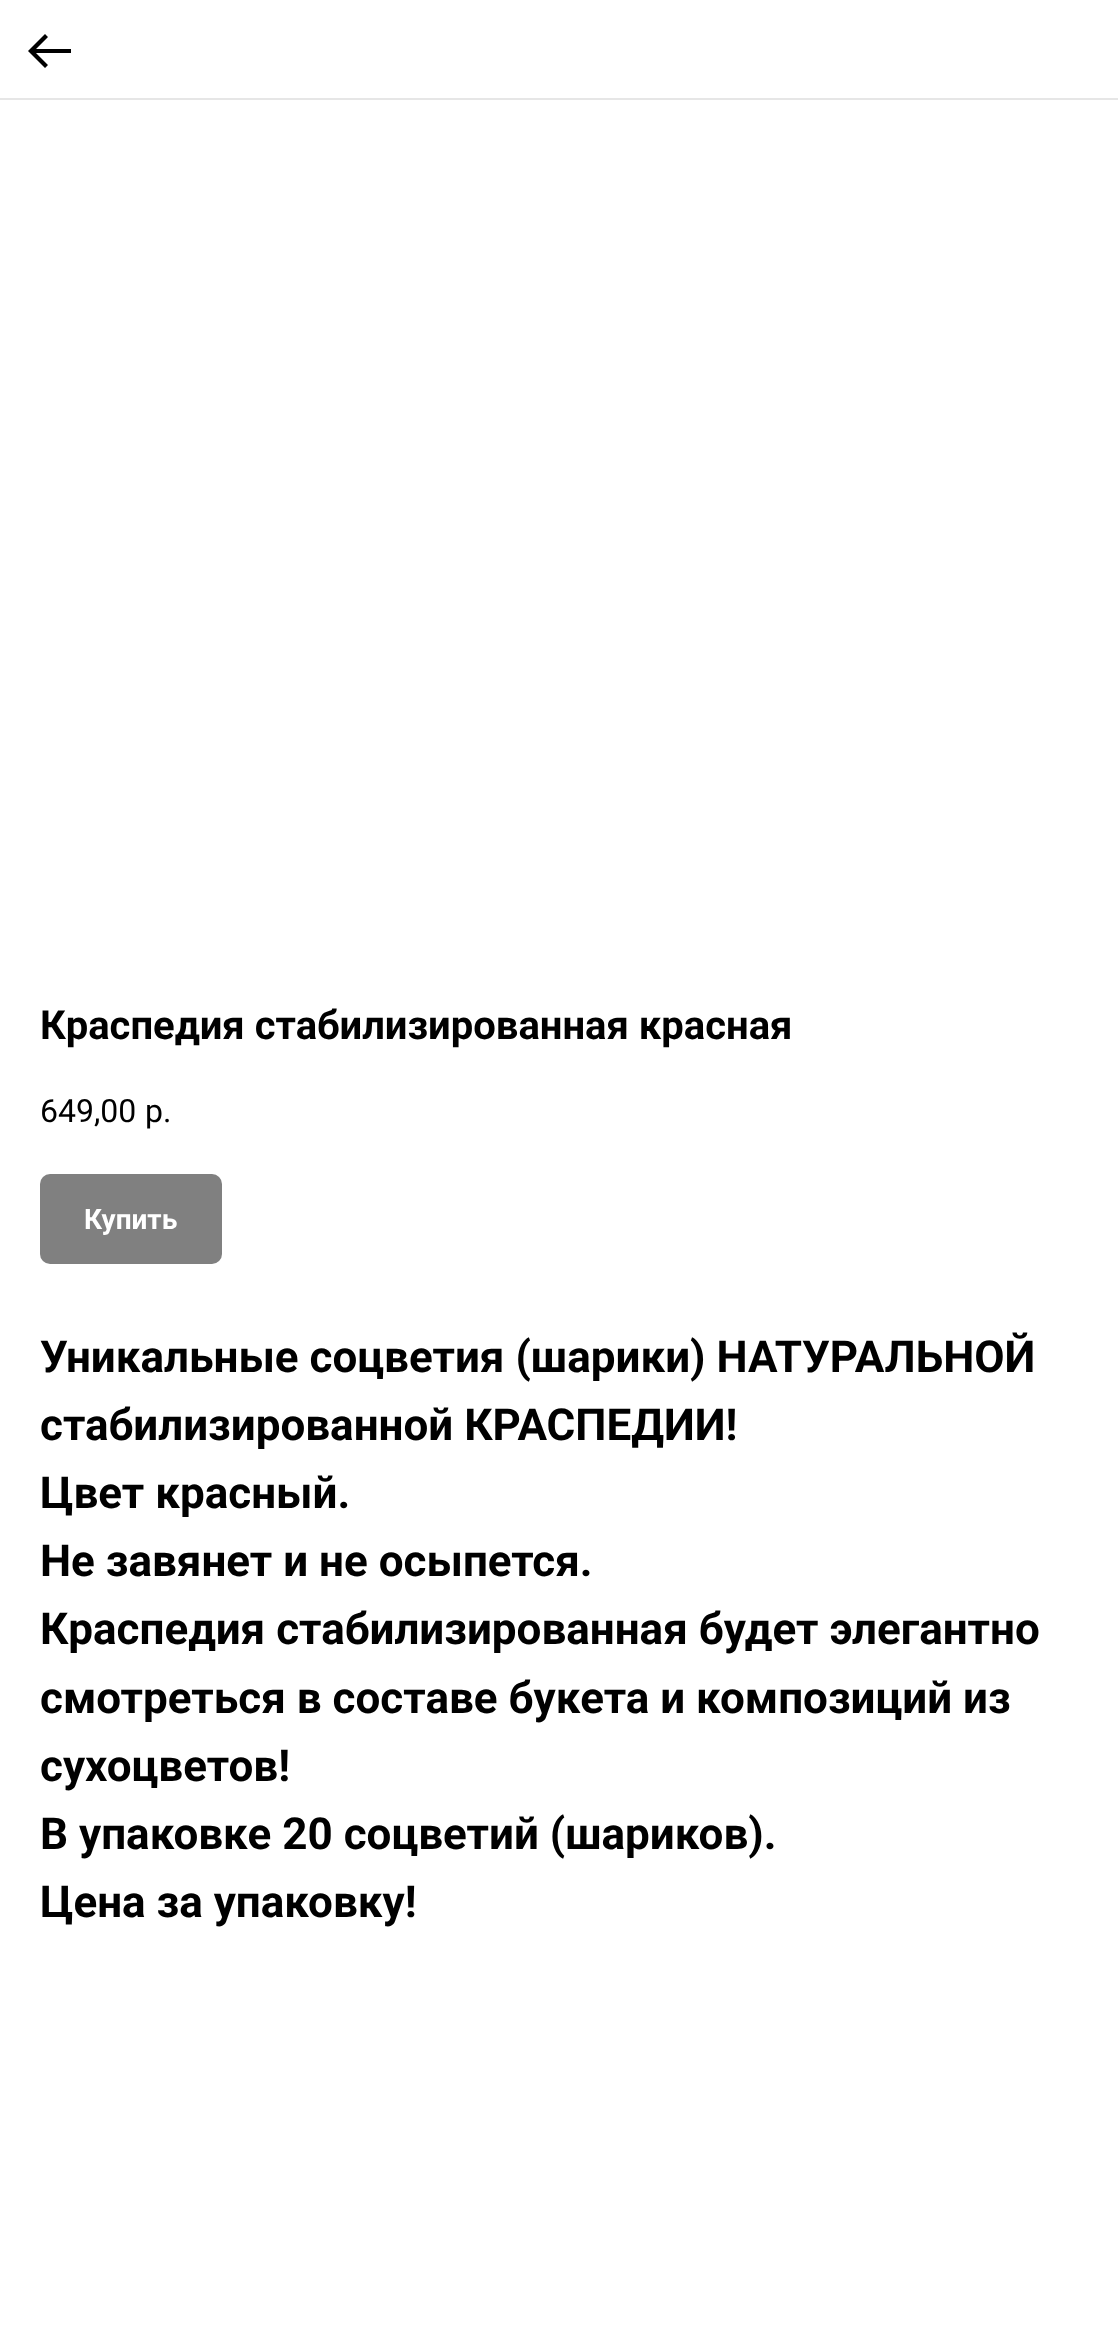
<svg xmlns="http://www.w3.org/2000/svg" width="1118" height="2339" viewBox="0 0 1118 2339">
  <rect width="100%" height="100%" fill="#ffffff"/>
  <rect x="0" y="98" width="1118" height="2" fill="#e6e6e6"/>
  <path d="M45 34L48 37L36 49H71V53H36L48 65L45 68L28 51Z" fill="#000000"/>
  <text x="40" y="1039" font-family="Roboto" font-size="40" font-weight="bold" fill="#000000">Краспедия стабилизированная красная</text>
  <text x="40" y="1122" font-family="Roboto" font-size="32" fill="#000000">649,00</text>
  <text x="145" y="1122" font-family="Roboto" font-size="32" fill="#000000">р.</text>
  <rect x="40" y="1174" width="182" height="90" rx="10" fill="#808080"/>
  <text x="84" y="1229" font-family="Roboto" font-size="28" font-weight="bold" fill="#ffffff">Купить</text>
  <text x="40" y="1372" font-family="Roboto" font-size="44" font-weight="bold" fill="#000000">Уникальные соцветия (шарики) НАТУРАЛЬНОЙ</text>
  <text x="40" y="1440" font-family="Roboto" font-size="44" font-weight="bold" fill="#000000">стабилизированной КРАСПЕДИИ!</text>
  <text x="40" y="1508" font-family="Roboto" font-size="44" font-weight="bold" fill="#000000">Цвет красный.</text>
  <text x="40" y="1576" font-family="Roboto" font-size="44" font-weight="bold" fill="#000000">Не завянет и не осыпется.</text>
  <text x="40" y="1644" font-family="Roboto" font-size="44" font-weight="bold" fill="#000000">Краспедия стабилизированная будет элегантно</text>
  <text x="40" y="1713" font-family="Roboto" font-size="44" font-weight="bold" fill="#000000">смотреться в составе букета и композиций из</text>
  <text x="40" y="1781" font-family="Roboto" font-size="44" font-weight="bold" fill="#000000">сухоцветов!</text>
  <text x="40" y="1849" font-family="Roboto" font-size="44" font-weight="bold" fill="#000000">В упаковке 20 соцветий (шариков).</text>
  <text x="40" y="1917" font-family="Roboto" font-size="44" font-weight="bold" fill="#000000">Цена за упаковку!</text>
</svg>
